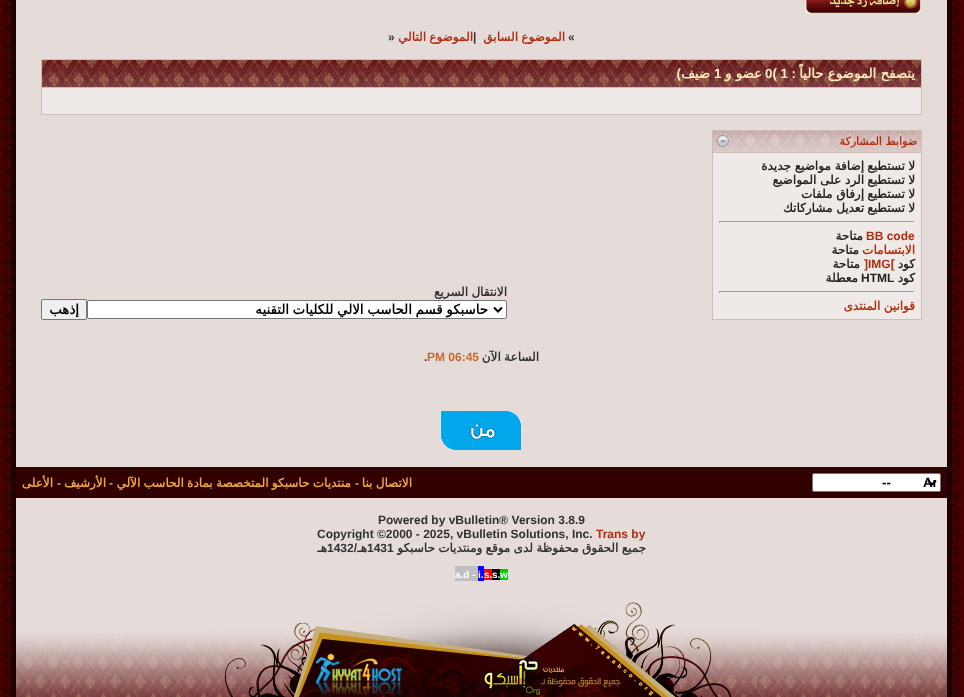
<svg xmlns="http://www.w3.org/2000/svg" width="964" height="697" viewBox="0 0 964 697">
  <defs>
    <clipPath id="clip1"><rect x="829" y="474" width="107" height="17"/></clipPath>
  </defs>
  <rect width="100%" height="100%" fill="#e5dcd9"/>
  <image x="947" y="0" width="17" height="593" href="img1.png"/>
  <image x="805" y="0" width="116" height="14" href="img2.png"/>
  <text x="568" y="41" font-family="Liberation Sans" font-size="12" font-weight="bold" fill="#313131">«</text>
  <text x="565" y="41" word-spacing="-0.5" font-family="DejaVu Sans" font-size="12" font-weight="bold" direction="rtl" fill="#af2e11">الموضوع السابق</text>
  <text x="473" y="41" font-family="Liberation Sans" font-size="12" font-weight="bold" fill="#313131">|</text>
  <text x="473" y="41" word-spacing="-0.5" font-family="DejaVu Sans" font-size="12" font-weight="bold" direction="rtl" fill="#af2e11">الموضوع التالي</text>
  <text x="388" y="41" font-family="Liberation Sans" font-size="12" font-weight="bold" fill="#313131">»</text>
  <rect x="41" y="59" width="881" height="56" fill="#d1bbb3"/>
  <image x="42" y="60" width="879" height="27" href="img3.png"/>
  <text x="915" y="78" font-family="DejaVu Sans" font-size="13.3" font-weight="bold" direction="rtl" fill="#ffedbf">يتصفح الموضوع حالياً</text>
  <text x="796" y="78" font-family="Liberation Sans" font-size="13.3" font-weight="bold" direction="rtl" fill="#ffedbf">:</text>
  <text x="765" y="78" font-family="Liberation Sans" font-size="13.3" font-weight="bold" fill="#ffedbf">0( 1</text>
  <text x="762" y="78" font-family="DejaVu Sans" font-size="13.3" font-weight="bold" direction="rtl" fill="#ffedbf">عضو و</text>
  <text x="714" y="78" font-family="Liberation Sans" font-size="13.3" font-weight="bold" fill="#ffedbf">1</text>
  <text x="710" y="78" font-family="DejaVu Sans" font-size="13.3" font-weight="bold" direction="rtl" fill="#ffedbf">ضيف</text>
  <text x="681" y="78" font-family="Liberation Sans" font-size="13.3" font-weight="bold" direction="rtl" fill="#ffedbf">)</text>
  <rect x="42" y="88" width="879" height="26" fill="#efe9e7"/>
  <rect x="712" y="130" width="210" height="190" fill="#d1bbb3"/>
  <image x="713" y="131" width="208" height="21" href="img4.png"/>
  <text x="917" y="145" font-family="DejaVu Sans" font-size="11" font-weight="bold" direction="rtl" fill="#af2e11">ضوابط المشاركة</text>
  <image x="717" y="135" width="12" height="12" href="img5.png"/>
  <rect x="713" y="153" width="208" height="166" fill="#efe9e7"/>
  <text x="915" y="170" word-spacing="-0.5" font-family="DejaVu Sans" font-size="12" font-weight="bold" direction="rtl" fill="#262120">لا تستطيع</text>
  <text x="864" y="170" font-family="DejaVu Sans" font-size="12" font-weight="bold" direction="rtl" fill="#262120">إضافة مواضيع جديدة</text>
  <text x="915" y="184" word-spacing="-0.5" font-family="DejaVu Sans" font-size="12" font-weight="bold" direction="rtl" fill="#262120">لا تستطيع</text>
  <text x="864" y="184" font-family="DejaVu Sans" font-size="12" font-weight="bold" direction="rtl" fill="#262120">الرد على المواضيع</text>
  <text x="915" y="198" word-spacing="-0.5" font-family="DejaVu Sans" font-size="12" font-weight="bold" direction="rtl" fill="#262120">لا تستطيع</text>
  <text x="864" y="198" font-family="DejaVu Sans" font-size="12" font-weight="bold" direction="rtl" fill="#262120">إرفاق ملفات</text>
  <text x="915" y="212" word-spacing="-0.5" font-family="DejaVu Sans" font-size="12" font-weight="bold" direction="rtl" fill="#262120">لا تستطيع</text>
  <text x="864" y="212" font-family="DejaVu Sans" font-size="12" font-weight="bold" direction="rtl" fill="#262120">تعديل مشاركاتك</text>
  <rect x="719" y="221" width="196" height="1" fill="#9f9f9f"/>
  <rect x="914" y="221" width="1" height="2" fill="#eeeeee"/>
  <rect x="719" y="222" width="196" height="1" fill="#eeeeee"/>
  <rect x="719" y="221" width="1" height="2" fill="#9f9f9f"/>
  <text x="866" y="240" font-family="Liberation Sans" font-size="12" font-weight="bold" fill="#af2e11">BB code</text>
  <text x="863" y="240" font-family="DejaVu Sans" font-size="12" font-weight="bold" direction="rtl" fill="#262120">متاحة</text>
  <text x="915" y="254" font-family="DejaVu Sans" font-size="12" font-weight="bold" direction="rtl" fill="#af2e11">الابتسامات</text>
  <text x="859" y="254" font-family="DejaVu Sans" font-size="12" font-weight="bold" direction="rtl" fill="#262120">متاحة</text>
  <text x="915" y="268" font-family="DejaVu Sans" font-size="12" font-weight="bold" direction="rtl" fill="#262120">كود</text>
  <text x="864" y="268" font-family="Liberation Sans" font-size="12" font-weight="bold" fill="#af2e11">]IMG[</text>
  <text x="860" y="268" font-family="DejaVu Sans" font-size="12" font-weight="bold" direction="rtl" fill="#262120">متاحة</text>
  <text x="915" y="282" font-family="DejaVu Sans" font-size="12" font-weight="bold" direction="rtl" fill="#262120">كود</text>
  <text x="861" y="282" font-family="Liberation Sans" font-size="12" font-weight="bold" fill="#262120">HTML</text>
  <text x="858" y="282" font-family="DejaVu Sans" font-size="12" font-weight="bold" direction="rtl" fill="#262120">معطلة</text>
  <rect x="719" y="291" width="196" height="1" fill="#9f9f9f"/>
  <rect x="914" y="291" width="1" height="2" fill="#eeeeee"/>
  <rect x="719" y="292" width="196" height="1" fill="#eeeeee"/>
  <rect x="719" y="291" width="1" height="2" fill="#9f9f9f"/>
  <text x="915" y="310" word-spacing="-0.5" font-family="DejaVu Sans" font-size="12" font-weight="bold" direction="rtl" fill="#af2e11">قوانين المنتدى</text>
  <text x="507" y="296" word-spacing="-0.5" font-family="DejaVu Sans" font-size="12" font-weight="bold" direction="rtl" fill="#313131">الانتقال السريع</text>
  <rect x="87.5" y="300.5" width="419" height="18" rx="1.5" fill="#ffffff" stroke="#767676"/>
  <path d="M494 307.5L498 311.5L502 307.5" fill="none" stroke="#000000" stroke-width="2"/>
  <text x="488" y="314" word-spacing="-0.5" font-family="DejaVu Sans" font-size="13.3" font-weight="bold" direction="rtl" fill="#000000">حاسبكو قسم الحاسب الالي للكليات التقنيه</text>
  <rect x="41.5" y="299.5" width="45" height="20" rx="1.5" fill="#efefef" stroke="#767676"/>
  <text x="79" y="314" font-family="DejaVu Sans" font-size="13.3" font-weight="bold" direction="rtl" fill="#000000">إذهب</text>
  <text x="539" y="361" word-spacing="-0.5" font-family="DejaVu Sans" font-size="12" font-weight="bold" direction="rtl" fill="#313131">الساعة الآن</text>
  <text x="427" y="361" font-family="Liberation Sans" font-size="12" font-weight="bold" fill="#c86831">PM 06:45</text>
  <text x="424" y="361" font-family="Liberation Sans" font-size="12" font-weight="bold" fill="#313131">.</text>
  <image x="440" y="411" width="81" height="39" href="img6.png"/>
  <rect x="16" y="467" width="931" height="31" fill="#310000"/>
  <rect x="812.5" y="473.5" width="128" height="18" rx="1.5" fill="#ffffff" stroke="#767676"/>
  <path d="M928 480.5L932 484.5L936 480.5" fill="none" stroke="#000000" stroke-width="2"/>
  <g clip-path="url(#clip1)">
    <text x="923" y="487" font-family="Liberation Sans" font-size="13.3" font-weight="bold" fill="#000000">Ar</text>
  </g>
  <text x="882" y="487" font-family="Liberation Sans" font-size="13.3" font-weight="bold" fill="#000000">--</text>
  <text x="412" y="487" word-spacing="-0.5" font-family="DejaVu Sans" font-size="12" font-weight="bold" direction="rtl" fill="#eda93d">الاتصال بنا</text>
  <text x="355" y="487" font-family="Liberation Sans" font-size="12" font-weight="bold" fill="#c5af7f">-</text>
  <text x="351" y="487" word-spacing="-0.5" font-family="DejaVu Sans" font-size="12" font-weight="bold" direction="rtl" fill="#eda93d">منتديات حاسبكو المتخصصة بمادة الحاسب الآلي</text>
  <text x="109" y="487" font-family="Liberation Sans" font-size="12" font-weight="bold" fill="#c5af7f">-</text>
  <text x="106" y="487" font-family="DejaVu Sans" font-size="12" font-weight="bold" direction="rtl" fill="#eda93d">الأرشيف</text>
  <text x="57" y="487" font-family="Liberation Sans" font-size="12" font-weight="bold" fill="#c5af7f">-</text>
  <text x="53" y="487" font-family="DejaVu Sans" font-size="12" font-weight="bold" direction="rtl" fill="#eda93d">الأعلى</text>
  <text x="378" y="524" font-family="Liberation Sans" font-size="12" font-weight="bold" fill="#313131">Powered by vBulletin® Version 3.8.9</text>
  <text x="596" y="538" font-family="Liberation Sans" font-size="12" font-weight="bold" fill="#af2e11">Trans by</text>
  <text x="317" y="538" font-family="Liberation Sans" font-size="12" font-weight="bold" fill="#313131">Copyright ©2000 - 2025, vBulletin Solutions, Inc.</text>
  <text x="646" y="552" word-spacing="-0.5" font-family="DejaVu Sans" font-size="12" font-weight="bold" direction="rtl" fill="#313131">جميع الحقوق محفوظة لدى موقع ومنتديات حاسبكو</text>
  <text x="367" y="552" font-family="Liberation Sans" font-size="12" font-weight="bold" fill="#313131">1431</text>
  <text x="327" y="552" font-family="Liberation Sans" font-size="12" font-weight="bold" fill="#313131">1432</text>
  <text x="357" y="552" font-family="Liberation Sans" font-size="12" font-weight="bold" direction="rtl" fill="#313131">/</text>
  <text x="367" y="552" font-family="DejaVu Sans" font-size="12" font-weight="bold" direction="rtl" fill="#313131">هـ</text>
  <text x="327" y="552" font-family="DejaVu Sans" font-size="12" font-weight="bold" direction="rtl" fill="#313131">هـ</text>
  <rect x="500" y="569" width="8" height="11" fill="#00cc00"/>
  <text x="500" y="578" font-family="Liberation Sans" font-size="10" font-weight="bold" fill="#ffffff">w</text>
  <rect x="492" y="569" width="8" height="11" fill="#000000"/>
  <text x="492" y="578" font-family="Liberation Sans" font-size="10" font-weight="bold" fill="#ffffff">s.</text>
  <rect x="484" y="569" width="8" height="11" fill="#ff0000"/>
  <text x="484" y="578" font-family="Liberation Sans" font-size="10" font-weight="bold" fill="#ffffff">s.</text>
  <rect x="478" y="566" width="6" height="15" fill="#0000ff"/>
  <text x="478" y="578" font-family="Liberation Sans" font-size="10" font-weight="bold" fill="#ffffff">i.</text>
  <rect x="455" y="566" width="23" height="15" fill="#c0c0c0"/>
  <text x="455" y="578" font-family="Liberation Sans" font-size="10" font-weight="bold" fill="#ffffff">a.d -</text>
  <image x="0" y="0" width="16" height="593" href="img7.png"/>
  <image x="947" y="593" width="17" height="104" href="img8.png"/>
  <image x="16" y="633" width="931" height="64" href="img9.png"/>
  <image x="206" y="601" width="551" height="96" href="img10.png"/>
  <image x="0" y="593" width="16" height="104" href="img11.png"/>
</svg>
